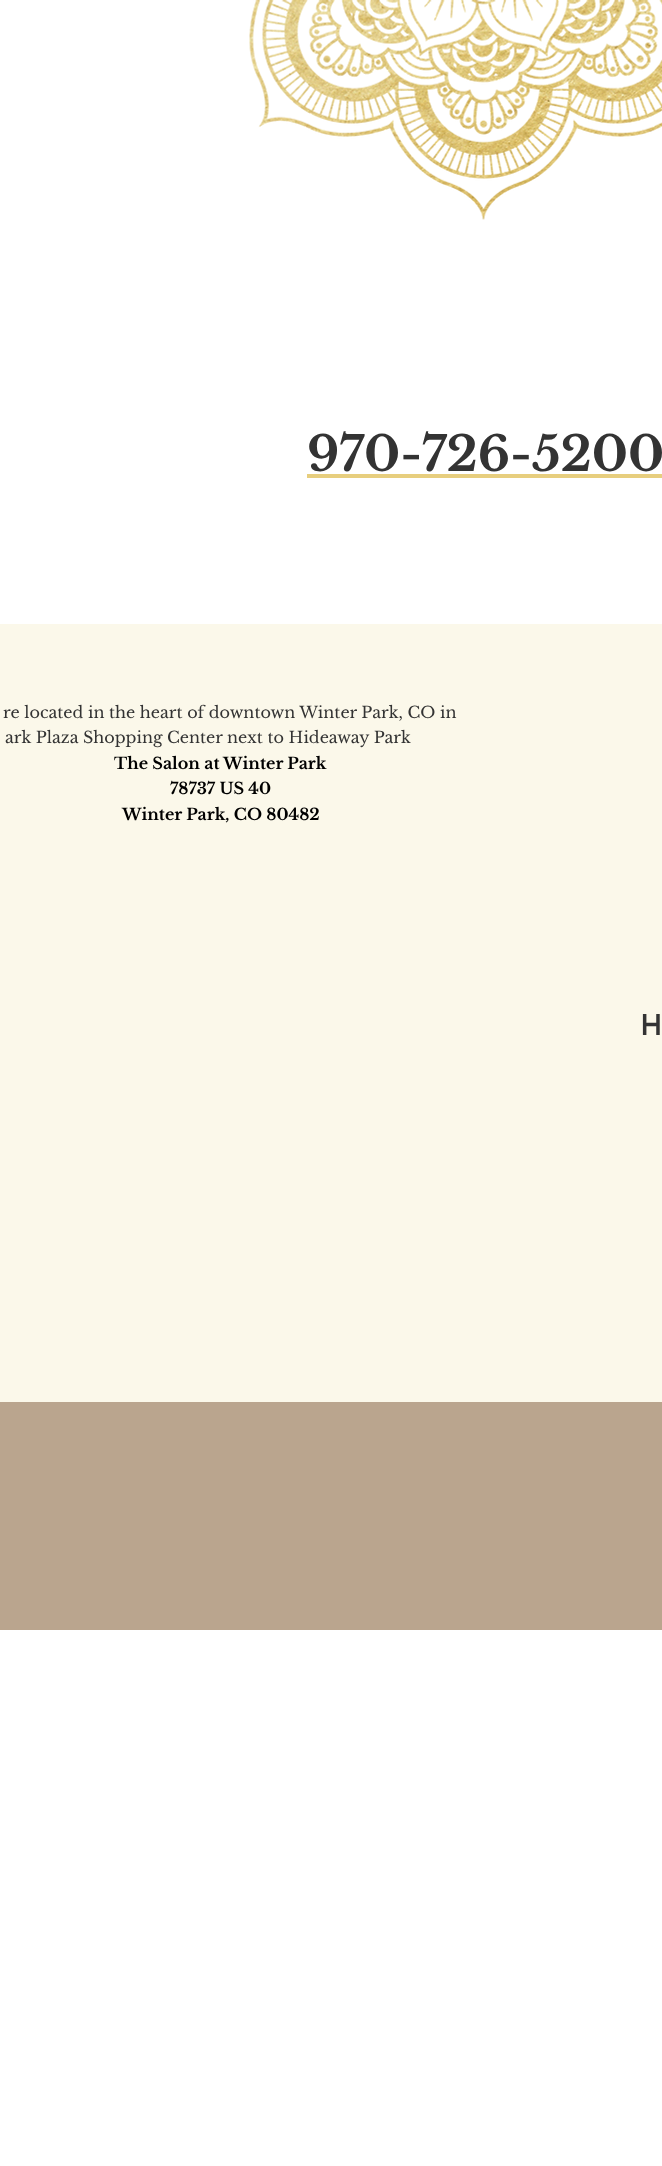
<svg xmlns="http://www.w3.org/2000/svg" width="662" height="2166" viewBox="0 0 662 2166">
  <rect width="100%" height="100%" fill="#ffffff"/>
  <image x="249" y="0" width="413" height="220" href="img1.png"/>
  <text x="307" y="471" font-family="Libre Baskerville" font-size="48" font-weight="bold" fill="#333333">970-726-5200</text>
  <rect x="307" y="474" width="355" height="4" fill="#e7ce7e"/>
  <rect x="0" y="624" width="662" height="778" fill="#fbf8ea"/>
  <text x="3" y="718" font-family="Libre Baskerville" font-size="16" fill="#333333">re located in the heart of downtown Winter Park, CO in</text>
  <text x="5" y="743" font-family="Libre Baskerville" font-size="16" fill="#333333">ark Plaza Shopping Center next to Hideaway Park</text>
  <text x="114" y="769" font-family="Libre Baskerville" font-size="16" font-weight="bold" fill="#000000">The Salon at Winter Park</text>
  <text x="170" y="794" font-family="Libre Baskerville" font-size="16" font-weight="bold" fill="#000000">78737 US 40</text>
  <text x="122" y="820" font-family="Libre Baskerville" font-size="16" font-weight="bold" fill="#000000">Winter Park, CO 80482</text>
  <text x="640" y="1035" word-spacing="12" font-family="Josefin Sans" font-size="28" font-weight="bold" fill="#333333">H</text>
  <rect x="0" y="1402" width="662" height="228" fill="#baa58e"/>
</svg>
